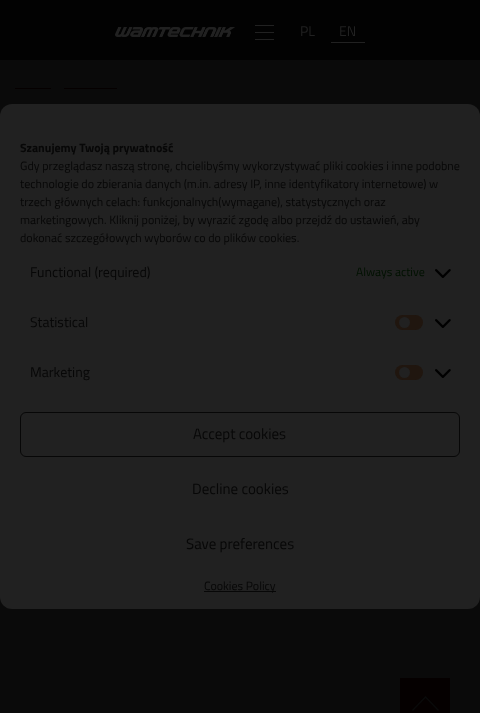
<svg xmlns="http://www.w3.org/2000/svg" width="480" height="713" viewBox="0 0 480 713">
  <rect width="100%" height="100%" fill="#0a0a0a"/>
  <rect x="0" y="0" width="480" height="60" fill="#020202"/>
  <image x="115" y="27" width="120" height="10" href="img1.png"/>
  <rect x="255" y="25" width="19" height="1" fill="#212121"/>
  <rect x="255" y="32" width="19" height="1" fill="#212121"/>
  <rect x="255" y="39" width="19" height="1" fill="#212121"/>
  <text x="300" y="36" font-family="Titillium Web" font-size="14" fill="#212121">PL</text>
  <text x="339" y="36" font-family="Titillium Web" font-size="14" fill="#212121">EN</text>
  <rect x="331" y="42" width="34" height="1" fill="#212121"/>
  <rect x="15" y="88" width="36" height="1" fill="#050000"/>
  <rect x="64" y="88" width="53" height="1" fill="#050000"/>
  <rect x="400" y="678" width="50" height="35" fill="#050000"/>
  <path d="M412 710L413 711L425.5 698L438 711L439 710L425.5 696Z" fill="#0a0a0a"/>
  <rect x="0" y="104" width="480" height="505" rx="12" fill="#212121"/>
  <text x="20" y="152" font-family="Titillium Web" font-size="12" font-weight="bold" fill="#070707">Szanujemy Twoją prywatność</text>
  <text x="20" y="170" font-family="Titillium Web" font-size="12" fill="#070707">Gdy przeglądasz naszą stronę, chcielibyśmy wykorzystywać pliki cookies i inne podobne</text>
  <text x="20" y="188" font-family="Titillium Web" font-size="12" fill="#070707">technologie do zbierania danych (m.in. adresy IP, inne identyfikatory internetowe) w</text>
  <text x="20" y="206" font-family="Titillium Web" font-size="12" fill="#070707">trzech głównych celach: funkcjonalnych(wymagane), statystycznych oraz</text>
  <text x="20" y="224" font-family="Titillium Web" font-size="12" fill="#070707">marketingowych. Kliknij poniżej, by wyrazić zgodę albo przejdź do ustawień, aby</text>
  <text x="20" y="242" font-family="Titillium Web" font-size="12" fill="#070707">dokonać szczegółowych wyborów co do plików cookies.</text>
  <text x="30" y="277" font-family="Titillium Web" font-size="14" fill="#070707">Functional (required)</text>
  <text x="356" y="276" font-family="Titillium Web" font-size="12" fill="#001100">Always active</text>
  <image x="435" y="269" width="16" height="9" href="img2.png"/>
  <text x="30" y="327" font-family="Titillium Web" font-size="14" fill="#070707">Statistical</text>
  <rect x="395" y="315" width="28" height="15" rx="7.5" fill="#20160f"/>
  <circle cx="404.5" cy="322.5" r="5.5" fill="#212121"/>
  <image x="435" y="319" width="16" height="9" href="img2.png"/>
  <text x="30" y="377" font-family="Titillium Web" font-size="14" fill="#070707">Marketing</text>
  <rect x="395" y="365" width="28" height="15" rx="7.5" fill="#20160f"/>
  <circle cx="404.5" cy="372.5" r="5.5" fill="#212121"/>
  <image x="435" y="369" width="16" height="9" href="img2.png"/>
  <rect x="20.5" y="412.5" width="439" height="44" rx="5.5" fill="none" stroke="#070707"/>
  <text x="193" y="439" font-family="Titillium Web" font-size="15" fill="#070707">Accept cookies</text>
  <text x="192" y="494" font-family="Titillium Web" font-size="15" fill="#070707">Decline cookies</text>
  <text x="186" y="549" font-family="Titillium Web" font-size="15" fill="#070707">Save preferences</text>
  <rect x="204" y="591" width="72" height="1" fill="#070707"/>
  <text x="204" y="590" font-family="Titillium Web" font-size="12" fill="#070707">Cookies Policy</text>
</svg>
